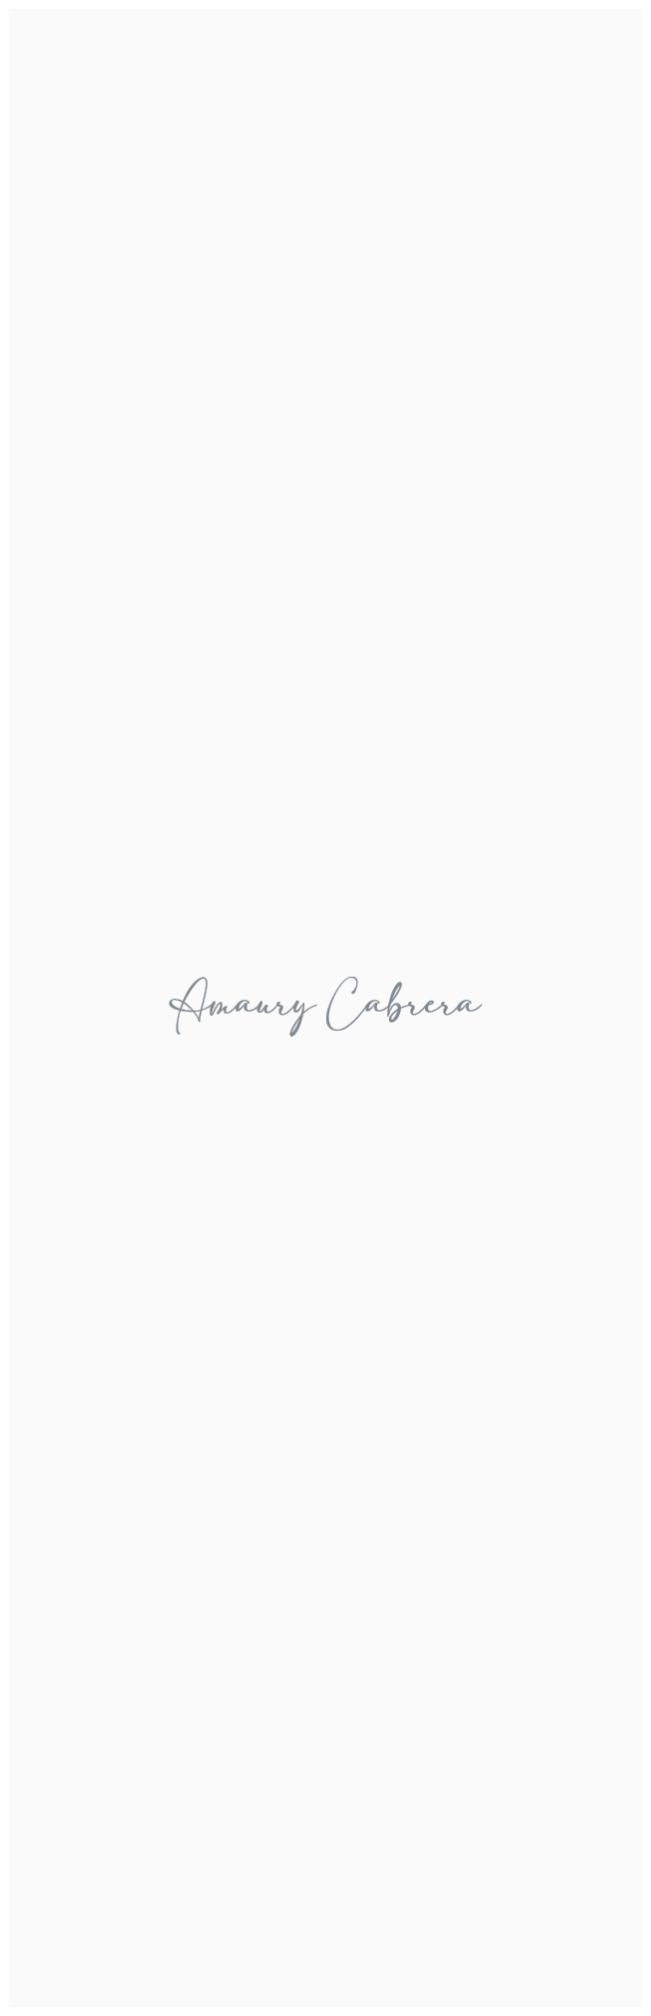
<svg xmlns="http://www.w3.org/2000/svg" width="651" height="2016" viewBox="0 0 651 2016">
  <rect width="100%" height="100%" fill="#ffffff"/>
  <rect x="9" y="9" width="633" height="1998" fill="#fafafa"/>
  <image x="168" y="976" width="315" height="61" href="img1.png"/>
</svg>
